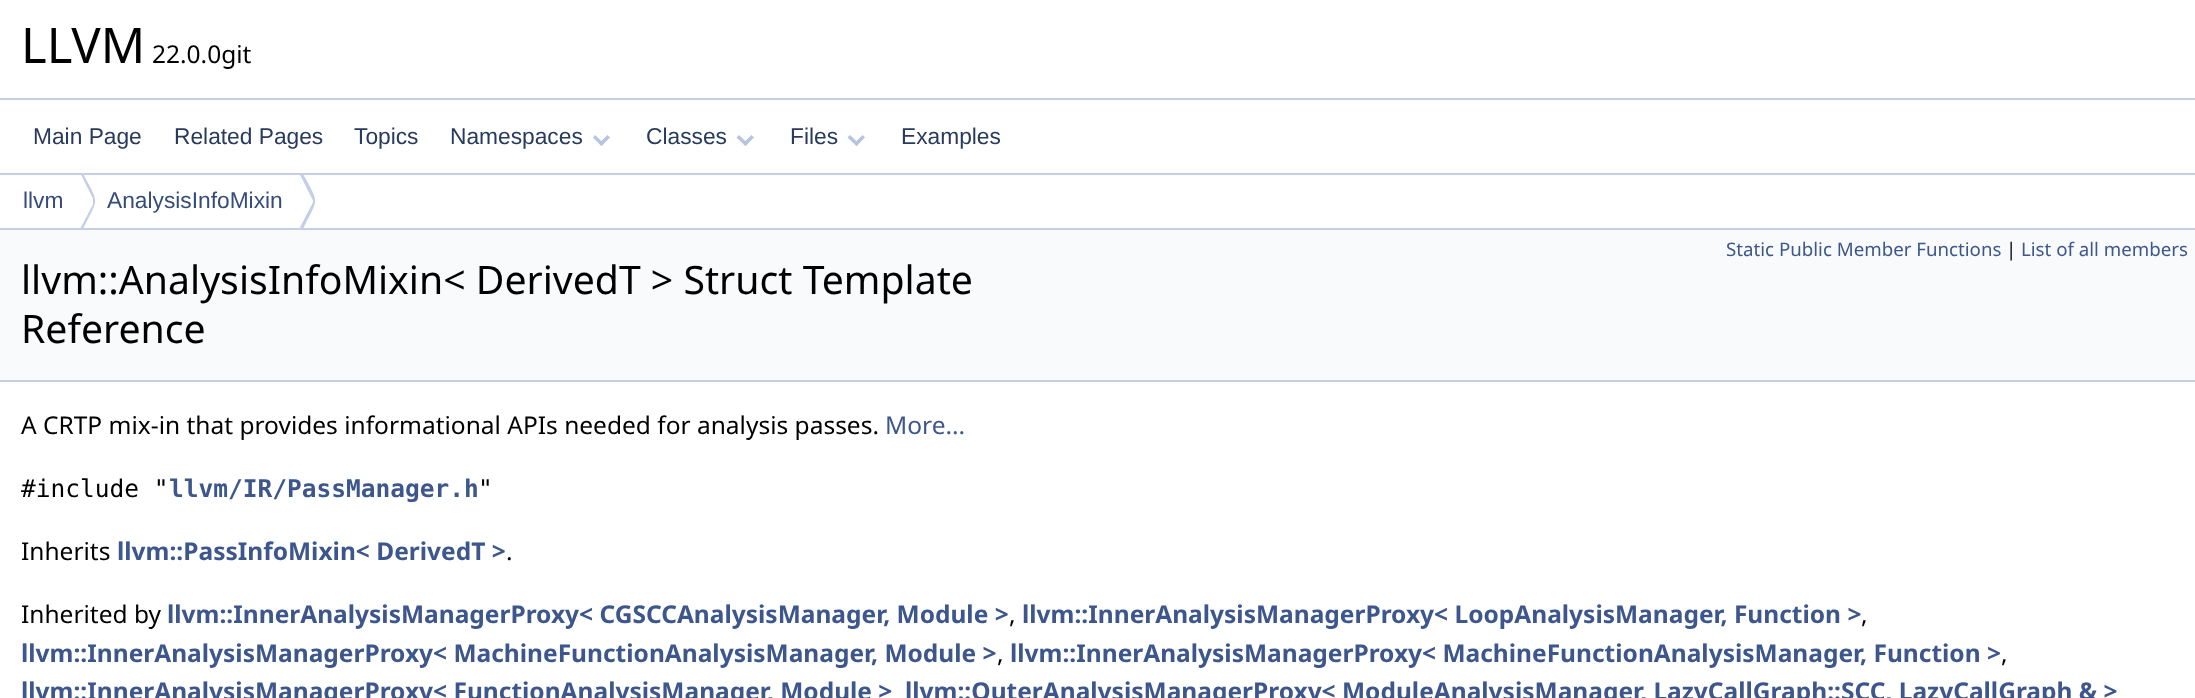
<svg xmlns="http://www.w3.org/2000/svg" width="2195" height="698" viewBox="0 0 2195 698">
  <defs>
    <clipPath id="clip1"><rect x="0" y="175" width="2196" height="53"/></clipPath>
  </defs>
  <rect width="100%" height="100%" fill="#ffffff"/>
  <rect x="0" y="98" width="2195" height="2" fill="#c4cfe5"/>
  <text x="21" y="63" font-family="Noto Sans" font-size="49" fill="#000000">LLVM</text>
  <text x="152" y="63" font-family="Noto Sans" font-size="24.5" fill="#000000">22.0.0git</text>
  <rect x="0" y="173" width="2195" height="2" fill="#c4cfe5"/>
  <text x="33" y="144" font-family="Liberation Sans" font-size="22.75" fill="#283a5d">Main Page</text>
  <text x="174" y="144" font-family="Liberation Sans" font-size="22.75" fill="#283a5d">Related Pages</text>
  <text x="354" y="144" font-family="Liberation Sans" font-size="22.75" fill="#283a5d">Topics</text>
  <text x="450" y="144" font-family="Liberation Sans" font-size="22.75" fill="#283a5d">Namespaces</text>
  <path d="M607.5 135L610 137.5L601.5 146L599 143.5Z" fill="#b6c4df"/>
  <path d="M595 135L604 143.5L601.5 146L593 137.5Z" fill="#b6c4df"/>
  <text x="646" y="144" font-family="Liberation Sans" font-size="22.75" fill="#283a5d">Classes</text>
  <path d="M751.5 135L754 137.5L745.5 146L743 143.5Z" fill="#b6c4df"/>
  <path d="M739 135L748 143.5L745.5 146L736.5 137.5Z" fill="#b6c4df"/>
  <text x="790" y="144" font-family="Liberation Sans" font-size="22.75" fill="#283a5d">Files</text>
  <path d="M862.5 135L865 137.5L856.5 146L854 143.5Z" fill="#b6c4df"/>
  <path d="M850 135L859 143.5L856.5 146L847.5 137.5Z" fill="#b6c4df"/>
  <text x="901" y="144" font-family="Liberation Sans" font-size="22.75" fill="#283a5d">Examples</text>
  <rect x="0" y="228" width="2195" height="2" fill="#c4cfe5"/>
  <text x="23" y="208" font-family="Liberation Sans" font-size="22.75" fill="#354c7b">llvm</text>
  <g clip-path="url(#clip1)">
    <path d="M82 172L81 175L93 199C93 200 93 202 93 204L81 227L80 225L82 231C99 196 100 206 82 172Z" fill="#c4cfe5"/>
  </g>
  <path d="M81 175L93 199C93 200 93 202 93 204L81 227C73 213 73 189 81 175Z" fill="#ffffff"/>
  <text x="107" y="208" font-family="Liberation Sans" font-size="22.75" fill="#354c7b">AnalysisInfoMixin</text>
  <g clip-path="url(#clip1)">
    <path d="M302 172C296 178 294 197 295 205C294 194 296 183 300 175L312 199C313 200 313 202 312 204L300 227L302 231C319 196 320 206 302 172Z" fill="#c4cfe5"/>
  </g>
  <path d="M300 175L312 199C313 200 313 202 312 204L300 227C293 213 293 189 300 175Z" fill="#ffffff"/>
  <rect x="0" y="230" width="2195" height="150" fill="#f9fafc"/>
  <rect x="0" y="380" width="2195" height="2" fill="#c4cfe5"/>
  <text x="1726" y="256" font-family="Noto Sans" font-size="18.7" fill="#3d578c">Static Public Member Functions</text>
  <text x="2006" y="256" font-family="Noto Sans" font-size="18.7" fill="#000000">|</text>
  <text x="2021" y="256" font-family="Noto Sans" font-size="18.7" fill="#3d578c">List of all members</text>
  <text x="21" y="294" font-family="Noto Sans" font-size="39.2" fill="#000000">llvm::AnalysisInfoMixin&lt; DerivedT &gt; Struct Template</text>
  <text x="21" y="343" font-family="Noto Sans" font-size="39.2" fill="#000000">Reference</text>
  <text x="21" y="434" font-family="Noto Sans" font-size="24.5" fill="#000000">A CRTP mix-in that provides informational APIs needed for analysis passes.</text>
  <text x="885" y="434" font-family="Noto Sans" font-size="24.5" fill="#3d578c">More...</text>
  <text x="21" y="497" font-family="DejaVu Sans Mono" font-size="24.5" fill="#000000">#include "</text>
  <text x="169" y="497" font-family="DejaVu Sans Mono" font-size="24.5" font-weight="bold" fill="#3d578c">llvm/IR/PassManager.h</text>
  <text x="478" y="497" font-family="DejaVu Sans Mono" font-size="24.5" fill="#000000">"</text>
  <text x="21" y="560" font-family="Noto Sans" font-size="24.5" fill="#000000">Inherits</text>
  <text x="117" y="560" font-family="Noto Sans" font-size="24.5" font-weight="bold" fill="#3d578c">llvm::PassInfoMixin&lt; DerivedT &gt;</text>
  <text x="506" y="560" font-family="Noto Sans" font-size="24.5" fill="#000000">.</text>
  <text x="21" y="623" font-family="Noto Sans" font-size="24.5" fill="#000000">Inherited by</text>
  <text x="167" y="623" font-family="Noto Sans" font-size="24.5" font-weight="bold" fill="#3d578c">llvm::InnerAnalysisManagerProxy&lt; CGSCCAnalysisManager, Module &gt;</text>
  <text x="1009" y="623" font-family="Noto Sans" font-size="24.5" fill="#000000">,</text>
  <text x="1022" y="623" font-family="Noto Sans" font-size="24.5" font-weight="bold" fill="#3d578c">llvm::InnerAnalysisManagerProxy&lt; LoopAnalysisManager, Function &gt;</text>
  <text x="1861" y="623" font-family="Noto Sans" font-size="24.5" fill="#000000">,</text>
  <text x="21" y="662" font-family="Noto Sans" font-size="24.5" font-weight="bold" fill="#3d578c">llvm::InnerAnalysisManagerProxy&lt; MachineFunctionAnalysisManager, Module &gt;</text>
  <text x="997" y="662" font-family="Noto Sans" font-size="24.5" fill="#000000">,</text>
  <text x="1010" y="662" font-family="Noto Sans" font-size="24.5" font-weight="bold" fill="#3d578c">llvm::InnerAnalysisManagerProxy&lt; MachineFunctionAnalysisManager, Function &gt;</text>
  <text x="2001" y="662" font-family="Noto Sans" font-size="24.5" fill="#000000">,</text>
  <text x="21" y="700" font-family="Noto Sans" font-size="24.5" font-weight="bold" fill="#3d578c">llvm::InnerAnalysisManagerProxy&lt; FunctionAnalysisManager, Module &gt;</text>
  <text x="905" y="700" font-family="Noto Sans" font-size="24.5" font-weight="bold" fill="#3d578c">llvm::OuterAnalysisManagerProxy&lt; ModuleAnalysisManager, LazyCallGraph::SCC, LazyCallGraph &amp; &gt;</text>
</svg>
